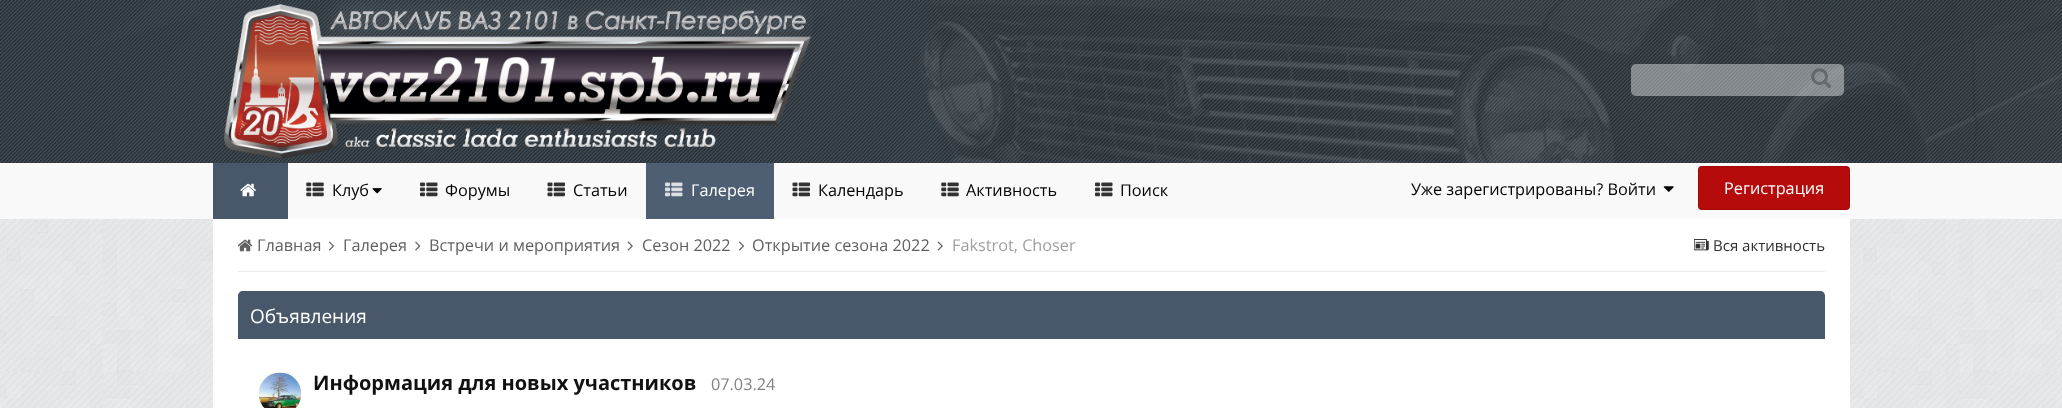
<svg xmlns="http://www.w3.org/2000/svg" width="2062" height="408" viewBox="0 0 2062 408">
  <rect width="100%" height="100%" fill="#ebeef2"/>
  <image x="0" y="219" width="2062" height="189" href="img1.png"/>
  <rect x="0" y="0" width="2062" height="163" fill="#19242d"/>
  <image x="0" y="0" width="2062" height="163" href="img2.png"/>
  <image x="224" y="0" width="589" height="159" href="img3.png"/>
  <rect x="1631" y="64" width="213" height="32" rx="5" fill="#ffffff" fill-opacity="0.4"/>
  <image x="1811" y="68" width="20" height="20" href="img4.png"/>
  <rect x="0" y="163" width="2062" height="56" fill="#f9f9f9"/>
  <rect x="213" y="163" width="75" height="56" fill="#485769"/>
  <image x="240" y="183" width="16" height="14" href="img5.png"/>
  <image x="306" y="182" width="18" height="15" href="img6.png"/>
  <text x="332" y="196" font-family="Open Sans" font-size="16.25" fill="#000000">Клуб</text>
  <image x="372" y="188" width="10" height="6" href="img7.png"/>
  <image x="420" y="182" width="18" height="15" href="img8.png"/>
  <text x="445" y="196" font-family="Open Sans" font-size="16.25" fill="#000000">Форумы</text>
  <image x="547" y="182" width="18" height="15" href="img9.png"/>
  <text x="573" y="196" font-family="Open Sans" font-size="16.25" fill="#000000">Статьи</text>
  <rect x="646" y="163" width="128" height="56" fill="#4e5f74"/>
  <image x="665" y="182" width="18" height="15" href="img10.png"/>
  <text x="691" y="196" font-family="Open Sans" font-size="16.25" fill="#ffffff">Галерея</text>
  <image x="792" y="182" width="18" height="15" href="img9.png"/>
  <text x="818" y="196" font-family="Open Sans" font-size="16.25" fill="#000000">Календарь</text>
  <image x="941" y="182" width="18" height="15" href="img6.png"/>
  <text x="966" y="196" font-family="Open Sans" font-size="16.25" fill="#000000">Активность</text>
  <image x="1095" y="182" width="18" height="15" href="img8.png"/>
  <text x="1120" y="196" font-family="Open Sans" font-size="16.25" fill="#000000">Поиск</text>
  <text x="1411" y="195" font-family="Open Sans" font-size="16.25" fill="#000000">Уже зарегистрированы? Войти</text>
  <image x="1663" y="186" width="11" height="6" href="img11.png"/>
  <rect x="1698" y="166" width="152" height="44" rx="4" fill="#b50b0b"/>
  <rect x="1698.5" y="166.5" width="151" height="43" rx="3.5" fill="none" stroke="#000000" stroke-opacity="0.1"/>
  <text x="1724" y="194" font-family="Open Sans" font-size="16.25" fill="#ffffff">Регистрация</text>
  <rect x="213" y="219" width="1637" height="189" fill="#ffffff"/>
  <rect x="238" y="271" width="1587" height="1" fill="#ececec"/>
  <image x="238" y="239" width="15" height="13" href="img12.png"/>
  <text x="257" y="251" font-family="Open Sans" font-size="16.25" fill="#616161">Главная</text>
  <image x="328" y="241" width="7" height="10" href="img13.png"/>
  <text x="343" y="251" font-family="Open Sans" font-size="16.25" fill="#616161">Галерея</text>
  <image x="415" y="241" width="6" height="10" href="img14.png"/>
  <text x="429" y="251" font-family="Open Sans" font-size="16.25" fill="#616161">Встречи и мероприятия</text>
  <image x="627" y="241" width="6" height="10" href="img15.png"/>
  <text x="642" y="251" font-family="Open Sans" font-size="16.25" fill="#616161">Сезон 2022</text>
  <image x="738" y="241" width="7" height="10" href="img13.png"/>
  <text x="752" y="251" font-family="Open Sans" font-size="16.25" fill="#616161">Открытие сезона 2022</text>
  <image x="937" y="241" width="6" height="10" href="img15.png"/>
  <text x="952" y="251" font-family="Open Sans" font-size="16.25" fill="#a0a0a0">Fakstrot, Choser</text>
  <image x="1694" y="239" width="15" height="12" href="img16.png"/>
  <text x="1713" y="251" font-family="Open Sans" font-size="15" fill="#303030">Вся активность</text>
  <path d="M243 291H1820C1823 291 1825 293 1825 296V339H238V296C238 293 240 291 243 291Z" fill="#485769"/>
  <text x="250" y="323" font-family="Open Sans" font-size="19" fill="#ffffff">Объявления</text>
  <image x="259" y="372" width="43" height="36" href="img17.png"/>
  <text x="313" y="390" font-family="Open Sans" font-size="20" font-weight="bold" fill="#111111">Информация для новых участников</text>
  <text x="711" y="390" font-family="Open Sans" font-size="16.25" fill="#828282">07.03.24</text>
</svg>
